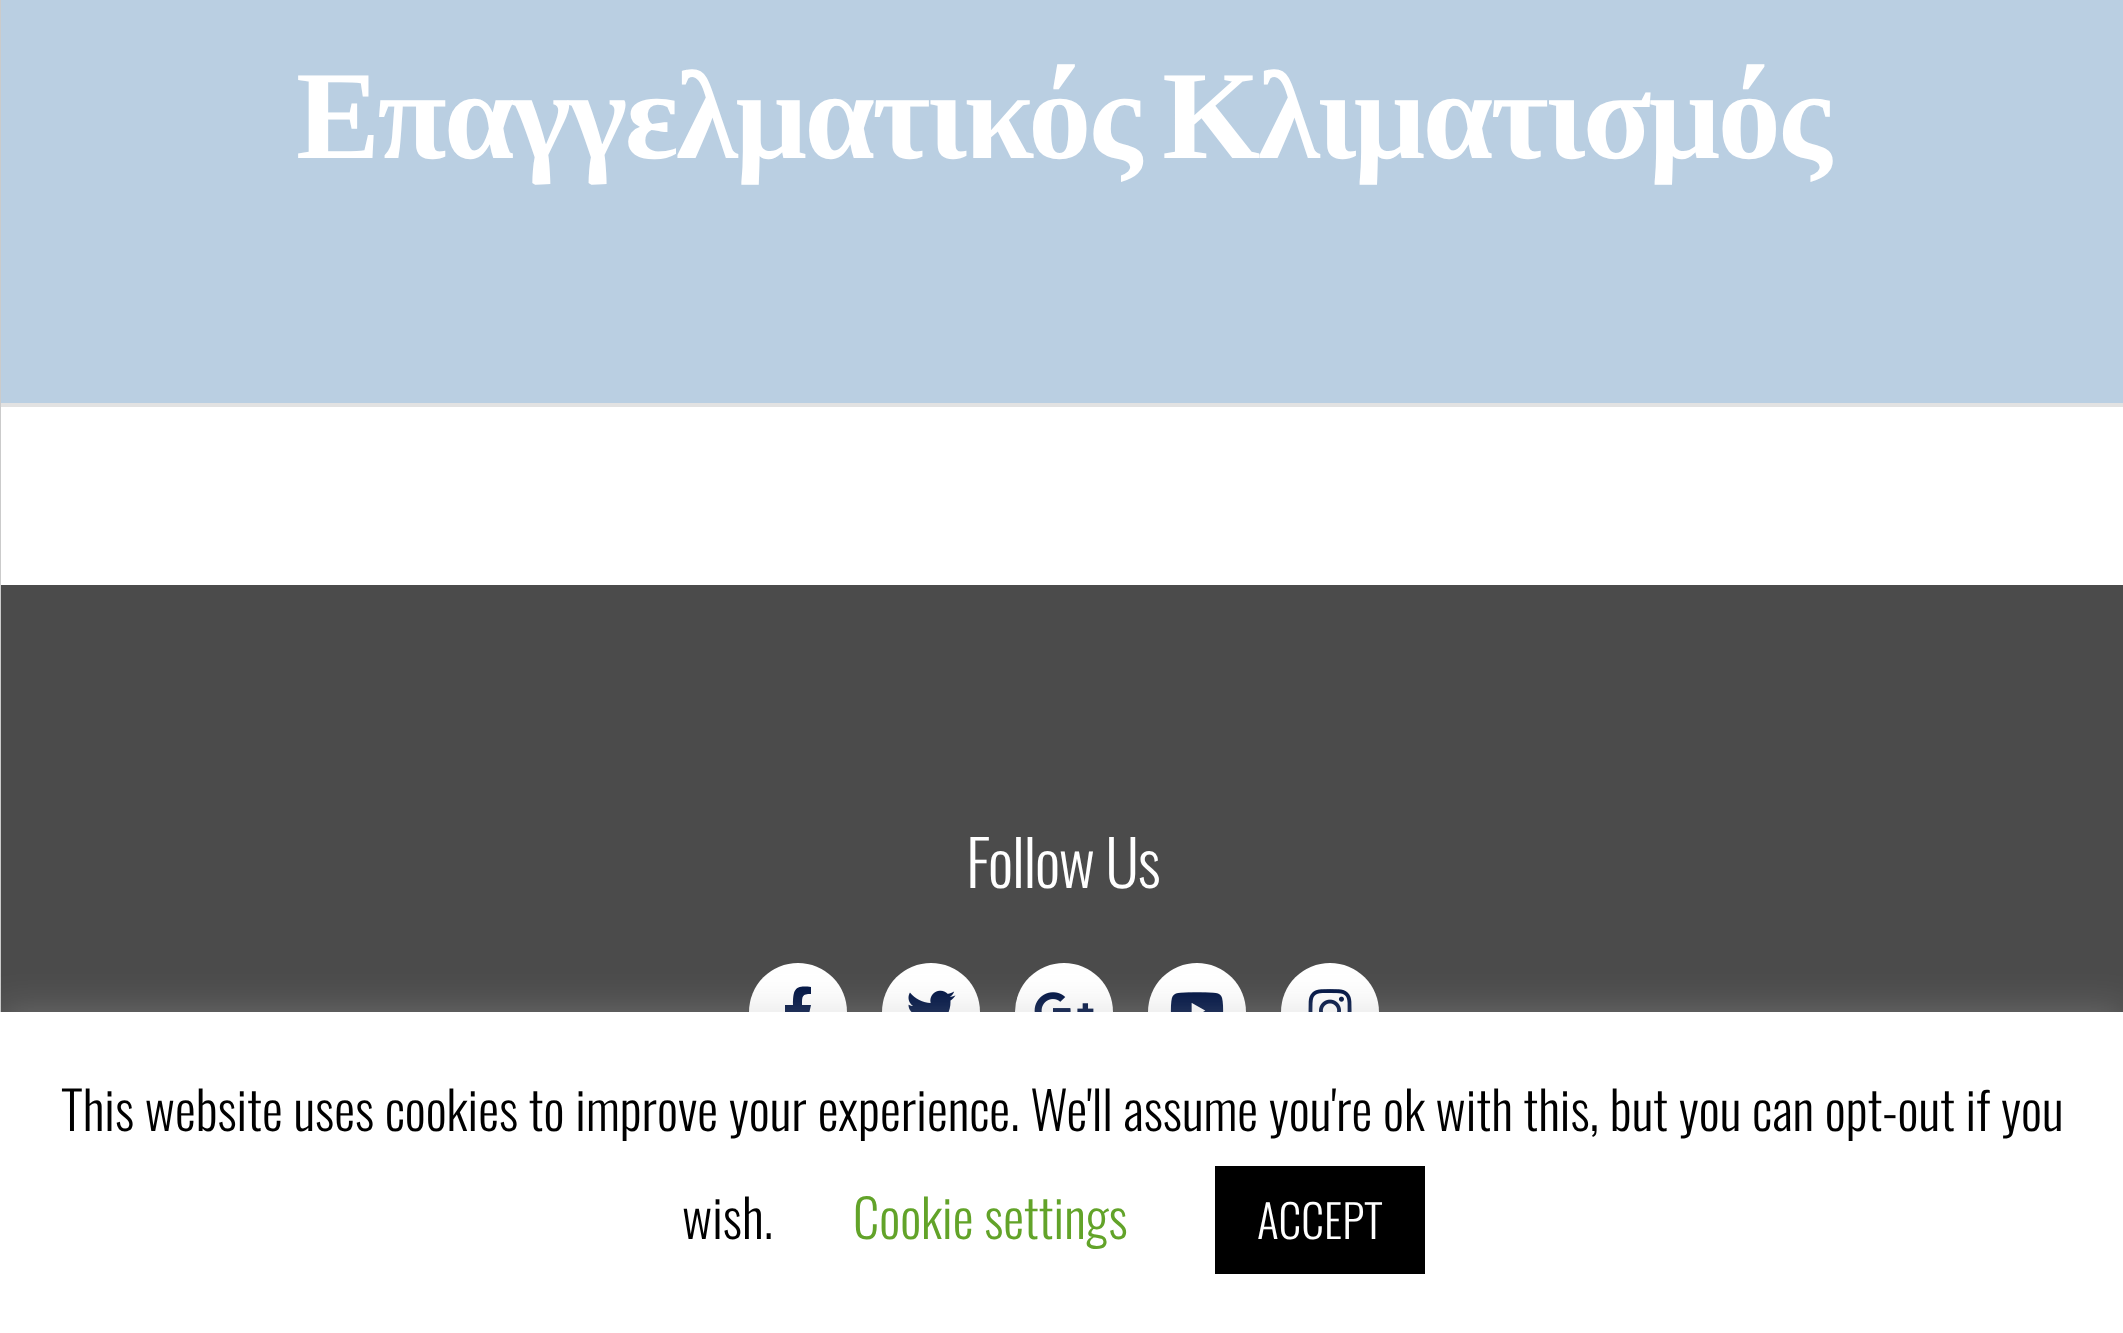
<svg xmlns="http://www.w3.org/2000/svg" width="2123" height="1333" viewBox="0 0 2123 1333">
  <defs>
    <filter id="blur1" x="-50%" y="-200%" width="200%" height="500%"><feGaussianBlur stdDeviation="17.5"/></filter>
  </defs>
  <rect width="100%" height="100%" fill="#ffffff"/>
  <rect x="0" y="403" width="2123" height="4" fill="#e2e2e2"/>
  <rect x="0" y="0" width="1" height="1012" fill="#cbcbcb"/>
  <rect x="1" y="0" width="2122" height="403" fill="#bacfe2"/>
  <text x="296" y="158" word-spacing="-6" font-family="Liberation Serif" font-size="126" font-weight="bold" letter-spacing="-2.5" fill="#ffffff">Επαγγελματικός Κλιματισμός</text>
  <rect x="1" y="585" width="2122" height="427" fill="#4b4b4b"/>
  <text x="966" y="888" font-family="Oswald" font-size="63" font-weight="300" letter-spacing="-1.25" fill="#ffffff">Follow Us</text>
  <circle cx="798" cy="1012" r="49" fill="#ffffff"/>
  <path d="M809 1014H802V1035H793V1014H785V1005H793C793 989 795 985 811 987V994C802 994 802 996 802 1005H811Z" fill="#001444"/>
  <circle cx="931" cy="1012" r="49" fill="#ffffff"/>
  <image x="908" y="990" width="48" height="22" href="img1.png"/>
  <circle cx="1064" cy="1012" r="49" fill="#ffffff"/>
  <image x="1034" y="992" width="60" height="20" href="img2.png"/>
  <circle cx="1197" cy="1012" r="49" fill="#ffffff"/>
  <image x="1170" y="992" width="54" height="20" href="img3.png"/>
  <circle cx="1330" cy="1012" r="49" fill="#ffffff"/>
  <image x="1308" y="989" width="44" height="23" href="img4.png"/>
  <rect x="0" y="1008" width="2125" height="322" fill="#acabab" fill-opacity="0.3" filter="url(#blur1)"/>
  <rect x="0" y="1012" width="2123" height="321" fill="#ffffff"/>
  <text x="61" y="1131" font-family="Oswald" font-size="52.5" font-weight="300" fill="#000000">This website uses cookies to improve your experience. We'll assume you're ok with this, but you can opt-out if you</text>
  <text x="682" y="1239" font-family="Oswald" font-size="52.5" font-weight="300" fill="#000000">wish.</text>
  <text x="853" y="1239" font-family="Oswald" font-size="52.5" font-weight="300" fill="#62a329">Cookie settings</text>
  <rect x="1215" y="1166" width="210" height="108" fill="#000000"/>
  <text x="1257" y="1239" font-family="Oswald" font-size="45.5" font-weight="300" fill="#ffffff">ACCEPT</text>
</svg>
